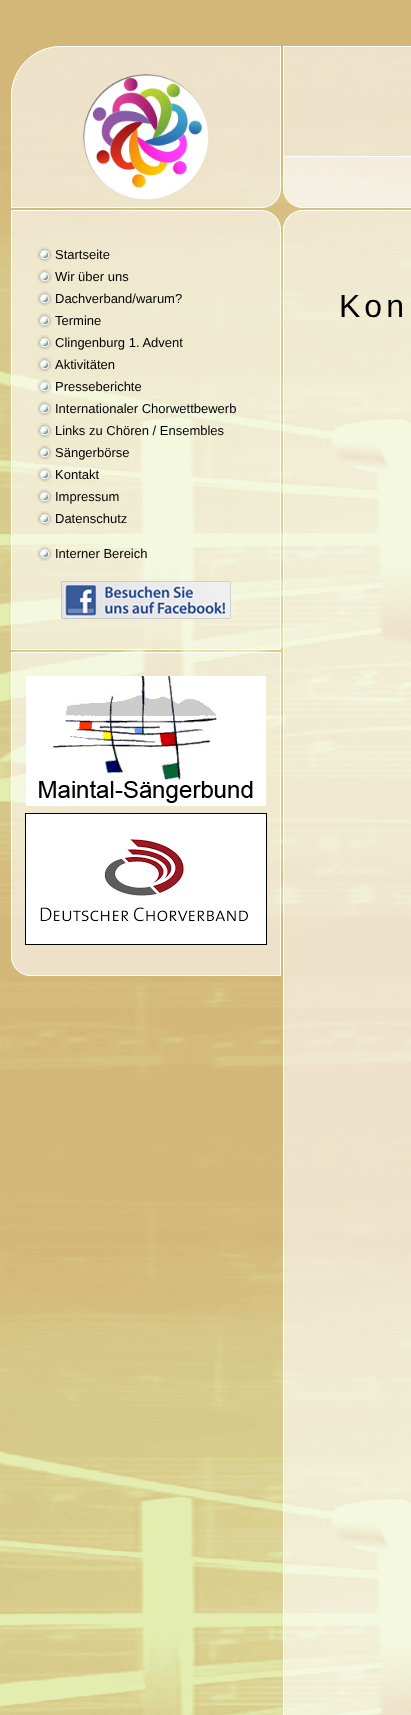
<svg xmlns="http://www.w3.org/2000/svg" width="411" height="1715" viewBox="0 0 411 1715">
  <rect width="100%" height="100%" fill="#ffffff"/>
  <image x="0" y="0" width="411" height="1715" href="img1.png"/>
  <image x="11" y="46" width="270" height="162" href="img2.png"/>
  <path d="M61 46.5H280.5V188C280.5 199 272 207.5 261 207.5H11.5V96C11.5 68.5 33.5 46.5 61 46.5Z" fill="none" stroke="#ffffff"/>
  <image x="83" y="74" width="126" height="126" href="img3.png"/>
  <image x="283" y="47" width="128" height="161" href="img4.png"/>
  <path d="M283.5 46.5H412C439.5 46.5 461.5 68.5 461.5 96V207.5H303C292 207.5 283.5 199 283.5 188Z" fill="none" stroke="#ffffff"/>
  <image x="284" y="157" width="127" height="50" href="img5.png"/>
  <rect x="284" y="156" width="127" height="1" fill="#ffffff"/>
  <image x="12" y="210" width="269" height="439" href="img6.png"/>
  <path d="M11.5 210.5H261C272 210.5 280.5 219 280.5 230V649.5H11.5Z" fill="none" stroke="#ffffff"/>
  <image x="37" y="247" width="15" height="15" href="img7.png"/>
  <text x="55" y="259" font-family="Liberation Sans" font-size="13" fill="#000000">Startseite</text>
  <image x="37" y="269" width="15" height="15" href="img8.png"/>
  <text x="55" y="281" font-family="Liberation Sans" font-size="13" fill="#000000">Wir über uns</text>
  <image x="37" y="291" width="15" height="15" href="img9.png"/>
  <text x="55" y="303" font-family="Liberation Sans" font-size="13" fill="#000000">Dachverband/warum?</text>
  <image x="37" y="313" width="15" height="15" href="img10.png"/>
  <text x="55" y="325" font-family="Liberation Sans" font-size="13" fill="#000000">Termine</text>
  <image x="37" y="335" width="15" height="15" href="img11.png"/>
  <text x="55" y="347" font-family="Liberation Sans" font-size="13" fill="#000000">Clingenburg 1. Advent</text>
  <image x="37" y="357" width="15" height="15" href="img12.png"/>
  <text x="55" y="369" font-family="Liberation Sans" font-size="13" fill="#000000">Aktivitäten</text>
  <image x="37" y="379" width="15" height="15" href="img13.png"/>
  <text x="55" y="391" font-family="Liberation Sans" font-size="13" fill="#000000">Presseberichte</text>
  <image x="37" y="401" width="15" height="15" href="img14.png"/>
  <text x="55" y="413" font-family="Liberation Sans" font-size="13" fill="#000000">Internationaler Chorwettbewerb</text>
  <image x="37" y="423" width="15" height="15" href="img15.png"/>
  <text x="55" y="435" font-family="Liberation Sans" font-size="13" fill="#000000">Links zu Chören / Ensembles</text>
  <image x="37" y="445" width="15" height="15" href="img16.png"/>
  <text x="55" y="457" font-family="Liberation Sans" font-size="13" fill="#000000">Sängerbörse</text>
  <image x="37" y="467" width="15" height="15" href="img17.png"/>
  <text x="55" y="479" font-family="Liberation Sans" font-size="13" fill="#000000">Kontakt</text>
  <image x="37" y="489" width="15" height="15" href="img18.png"/>
  <text x="55" y="501" font-family="Liberation Sans" font-size="13" fill="#000000">Impressum</text>
  <image x="37" y="511" width="15" height="15" href="img19.png"/>
  <text x="55" y="523" font-family="Liberation Sans" font-size="13" fill="#000000">Datenschutz</text>
  <image x="37" y="546" width="15" height="15" href="img20.png"/>
  <text x="55" y="558" font-family="Liberation Sans" font-size="13" fill="#000000">Interner Bereich</text>
  <image x="61" y="581" width="170" height="38" href="img21.png"/>
  <image x="11" y="653" width="269" height="323" href="img22.png"/>
  <path d="M11.5 652.5H280.5V975.5H31C20 975.5 11.5 967 11.5 956Z" fill="none" stroke="#ffffff"/>
  <image x="26" y="676" width="240" height="130" href="img23.png"/>
  <rect x="25.5" y="813.5" width="241" height="131" fill="none" stroke="#000000"/>
  <image x="26" y="814" width="240" height="130" href="img24.png"/>
  <image x="283" y="210" width="128" height="1505" href="img25.png"/>
  <path d="M303 210.5H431.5V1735.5H283.5V230C283.5 219 292 210.5 303 210.5Z" fill="none" stroke="#ffffff"/>
  <text x="339" y="317" font-family="Liberation Sans" font-size="32" letter-spacing="4" fill="#000000">Kon</text>
</svg>
